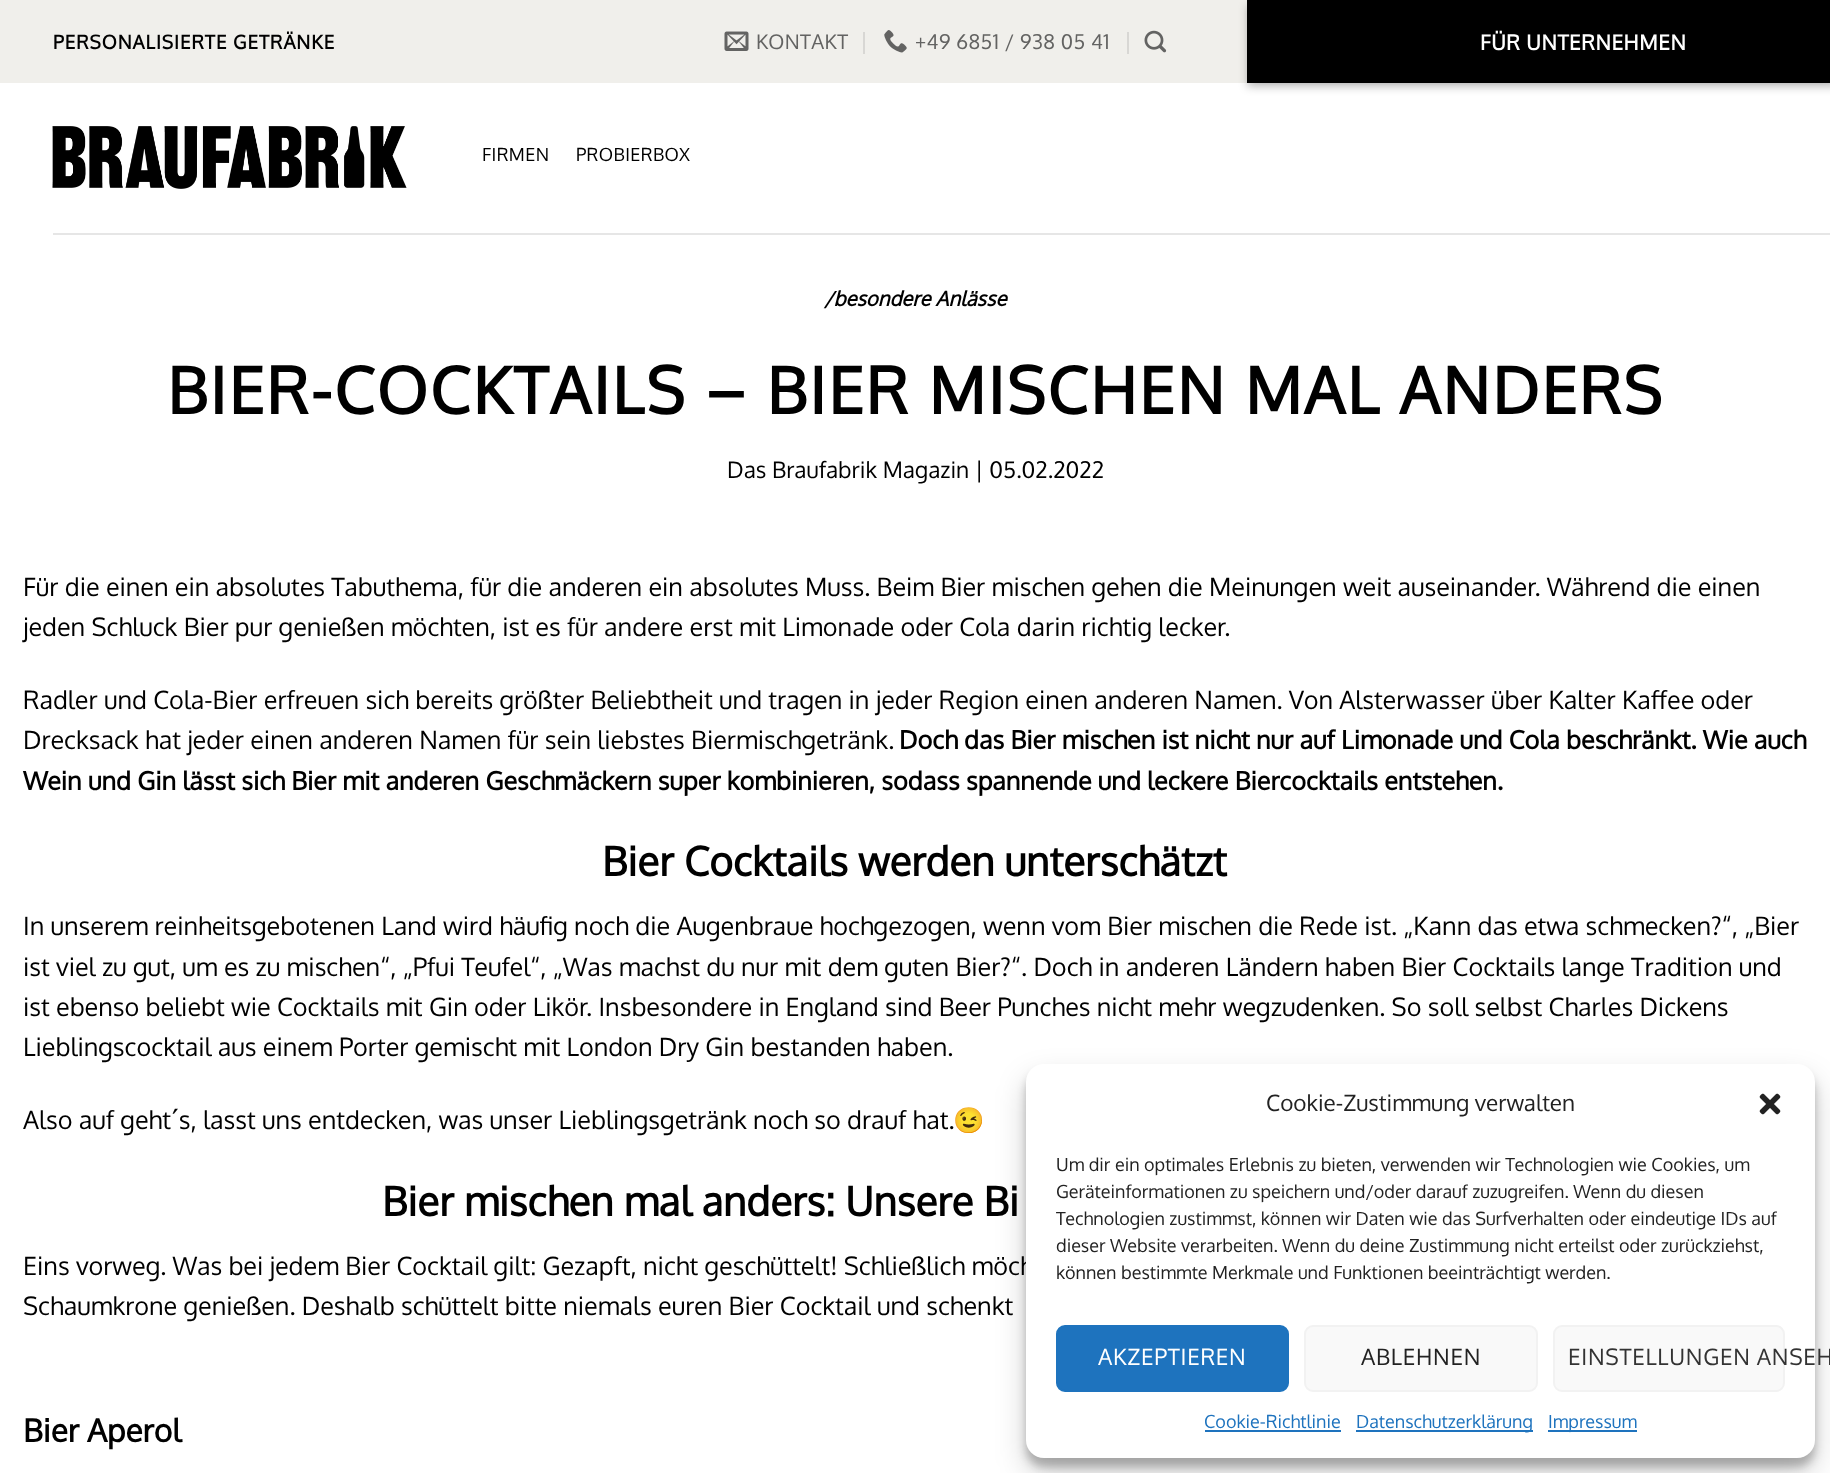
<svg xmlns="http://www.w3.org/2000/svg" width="1830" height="1473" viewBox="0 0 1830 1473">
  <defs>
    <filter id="blur1" x="-50%" y="-200%" width="200%" height="500%"><feGaussianBlur stdDeviation="4.5"/></filter>
    <filter id="blur2" x="-50%" y="-200%" width="200%" height="500%"><feGaussianBlur stdDeviation="15"/></filter>
  </defs>
  <rect width="100%" height="100%" fill="#ffffff"/>
  <rect x="0" y="0" width="1247" height="83" fill="#f0efeb"/>
  <text x="53" y="49" font-family="Oxygen" font-size="18.9" font-weight="bold" letter-spacing="0.95" fill="#000000">PERSONALISIERTE GETRÄNKE</text>
  <image x="724" y="31" width="25" height="20" href="img1.png"/>
  <text x="756" y="49" font-family="Oxygen" font-size="20.25" letter-spacing="0.4" fill="#636362">KONTAKT</text>
  <rect x="863" y="32" width="2" height="22" fill="#d8d7d4"/>
  <image x="884" y="30" width="23" height="23" href="img2.png"/>
  <text x="915" y="49" font-family="Oxygen" font-size="20.25" letter-spacing="0.4" fill="#636362">+49 6851 / 938 05 41</text>
  <rect x="1127" y="32" width="2" height="22" fill="#d8d7d4"/>
  <image x="1144" y="30" width="23" height="23" href="img3.png"/>
  <rect x="1247" y="5" width="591" height="82" fill="#000000" fill-opacity="0.23" filter="url(#blur1)"/>
  <rect x="1253" y="11" width="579" height="70" fill="#000000" fill-opacity="0.16" filter="url(#blur1)"/>
  <rect x="1247" y="0" width="583" height="83" fill="#000000"/>
  <text x="1480" y="50" font-family="Oxygen" font-size="20.75" font-weight="bold" letter-spacing="0.6" fill="#ffffff">FÜR UNTERNEHMEN</text>
  <image x="52" y="126" width="355" height="63" href="img4.png"/>
  <text x="482" y="161" font-family="Oxygen" font-size="18" letter-spacing="0.4" fill="#000000">FIRMEN</text>
  <text x="576" y="161" font-family="Oxygen" font-size="18" letter-spacing="0.4" fill="#000000">PROBIERBOX</text>
  <rect x="53" y="233" width="1777" height="2" fill="#e6e6e6"/>
  <text x="824" y="306" font-family="Oxygen" font-size="20.25" font-weight="bold" font-style="italic" fill="#000000">/besondere Anlässe</text>
  <text x="167" y="414" font-family="Oxygen" font-size="64.25" font-weight="bold" letter-spacing="2.15" fill="#000000">BIER-COCKTAILS – BIER MISCHEN MAL ANDERS</text>
  <text x="727" y="478" font-family="Oxygen" font-size="22.7" fill="#000000">Das Braufabrik Magazin | 05.02.2022</text>
  <text x="23" y="596" font-family="Oxygen" font-size="25.2" fill="#000000">Für die einen ein absolutes Tabuthema, für die anderen ein absolutes Muss. Beim Bier mischen gehen die Meinungen weit auseinander. Während die einen</text>
  <text x="23" y="636" font-family="Oxygen" font-size="25.2" fill="#000000">jeden Schluck Bier pur genießen möchten, ist es für andere erst mit Limonade oder Cola darin richtig lecker.</text>
  <text x="23" y="709" font-family="Oxygen" font-size="25.2" fill="#000000">Radler und Cola-Bier erfreuen sich bereits größter Beliebtheit und tragen in jeder Region einen anderen Namen. Von Alsterwasser über Kalter Kaffee oder</text>
  <text x="23" y="749" font-family="Oxygen" font-size="25.2" fill="#000000">Drecksack hat jeder einen anderen Namen für sein liebstes Biermischgetränk.</text>
  <text x="899" y="749" font-family="Oxygen" font-size="25.2" font-weight="bold" fill="#000000">Doch das Bier mischen ist nicht nur auf Limonade und Cola beschränkt. Wie auch</text>
  <text x="23" y="790" font-family="Oxygen" font-size="25.2" font-weight="bold" fill="#000000">Wein und Gin lässt sich Bier mit anderen Geschmäckern super kombinieren, sodass spannende und leckere Biercocktails entstehen.</text>
  <text x="602" y="876" font-family="Oxygen" font-size="40.3" font-weight="bold" fill="#000000">Bier Cocktails werden unterschätzt</text>
  <text x="23" y="935" font-family="Oxygen" font-size="25.2" fill="#000000">In unserem reinheitsgebotenen Land wird häufig noch die Augenbraue hochgezogen, wenn vom Bier mischen die Rede ist. „Kann das etwa schmecken?“, „Bier</text>
  <text x="23" y="976" font-family="Oxygen" font-size="25.2" fill="#000000">ist viel zu gut, um es zu mischen“, „Pfui Teufel“, „Was machst du nur mit dem guten Bier?“. Doch in anderen Ländern haben Bier Cocktails lange Tradition und</text>
  <text x="23" y="1016" font-family="Oxygen" font-size="25.2" fill="#000000">ist ebenso beliebt wie Cocktails mit Gin oder Likör. Insbesondere in England sind Beer Punches nicht mehr wegzudenken. So soll selbst Charles Dickens</text>
  <text x="23" y="1056" font-family="Oxygen" font-size="25.2" fill="#000000">Lieblingscocktail aus einem Porter gemischt mit London Dry Gin bestanden haben.</text>
  <text x="23" y="1129" font-family="Oxygen" font-size="25.2" fill="#000000">Also auf geht´s, lasst uns entdecken, was unser Lieblingsgetränk noch so drauf hat.</text>
  <text x="953" y="1129" font-family="Noto Color Emoji" font-size="25.2" fill="#000000">😉</text>
  <text x="382" y="1216" font-family="Oxygen" font-size="40.3" font-weight="bold" fill="#000000">Bier mischen mal anders: Unsere Bi</text>
  <text x="23" y="1275" font-family="Oxygen" font-size="25.2" fill="#000000">Eins vorweg. Was bei jedem Bier Cocktail gilt: Gezapft, nicht geschüttelt! Schließlich möch</text>
  <text x="23" y="1315" font-family="Oxygen" font-size="25.2" fill="#000000">Schaumkrone genießen. Deshalb schüttelt bitte niemals euren Bier Cocktail und schenkt</text>
  <text x="23" y="1442" font-family="Oxygen" font-size="31.5" font-weight="bold" fill="#000000">Bier Aperol</text>
  <rect x="1026" y="1073" width="789" height="394" rx="18" fill="#000000" fill-opacity="0.23" filter="url(#blur1)"/>
  <rect x="1026" y="1079" width="789" height="394" rx="18" fill="#000000" fill-opacity="0.19" filter="url(#blur2)"/>
  <rect x="1026" y="1064" width="789" height="394" rx="18" fill="#ffffff"/>
  <text x="1266" y="1111" font-family="Oxygen" font-size="22.5" fill="#222222">Cookie-Zustimmung verwalten</text>
  <image x="1759" y="1093" width="22" height="22" href="img5.png"/>
  <text x="1056" y="1171" font-family="Oxygen" font-size="18" fill="#222222">Um dir ein optimales Erlebnis zu bieten, verwenden wir Technologien wie Cookies, um</text>
  <text x="1056" y="1198" font-family="Oxygen" font-size="18" fill="#222222">Geräteinformationen zu speichern und/oder darauf zuzugreifen. Wenn du diesen</text>
  <text x="1056" y="1225" font-family="Oxygen" font-size="18" fill="#222222">Technologien zustimmst, können wir Daten wie das Surfverhalten oder eindeutige IDs auf</text>
  <text x="1056" y="1252" font-family="Oxygen" font-size="18" fill="#222222">dieser Website verarbeiten. Wenn du deine Zustimmung nicht erteilst oder zurückziehst,</text>
  <text x="1056" y="1279" font-family="Oxygen" font-size="18" fill="#222222">können bestimmte Merkmale und Funktionen beeinträchtigt werden.</text>
  <rect x="1057" y="1326" width="231" height="65" rx="8" fill="#1e73be" stroke="#1e73be" stroke-width="2"/>
  <text x="1098" y="1365" font-family="Oxygen" font-size="22.5" letter-spacing="0.7" fill="#ffffff">AKZEPTIEREN</text>
  <rect x="1305" y="1326" width="232" height="65" rx="8" fill="#f9f9f9" stroke="#f2f2f2" stroke-width="2"/>
  <text x="1361" y="1365" font-family="Oxygen" font-size="22.5" letter-spacing="0.7" fill="#222222">ABLEHNEN</text>
  <rect x="1554" y="1326" width="230" height="65" rx="8" fill="#f9f9f9" stroke="#f2f2f2" stroke-width="2"/>
  <text x="1568" y="1365" font-family="Oxygen" font-size="22.5" letter-spacing="0.7" fill="#333333">EINSTELLUNGEN ANSEH</text>
  <text x="1204" y="1428" font-family="Oxygen" font-size="18" fill="#1e73be">Cookie-Richtlinie</text>
  <rect x="1205" y="1430" width="136" height="2" fill="#1e73be"/>
  <rect x="1356" y="1430" width="177" height="2" fill="#1e73be"/>
  <text x="1356" y="1428" font-family="Oxygen" font-size="18" fill="#1e73be">Datenschutzerklärung</text>
  <rect x="1548" y="1430" width="89" height="2" fill="#1e73be"/>
  <text x="1548" y="1428" font-family="Oxygen" font-size="18" fill="#1e73be">Impressum</text>
</svg>
